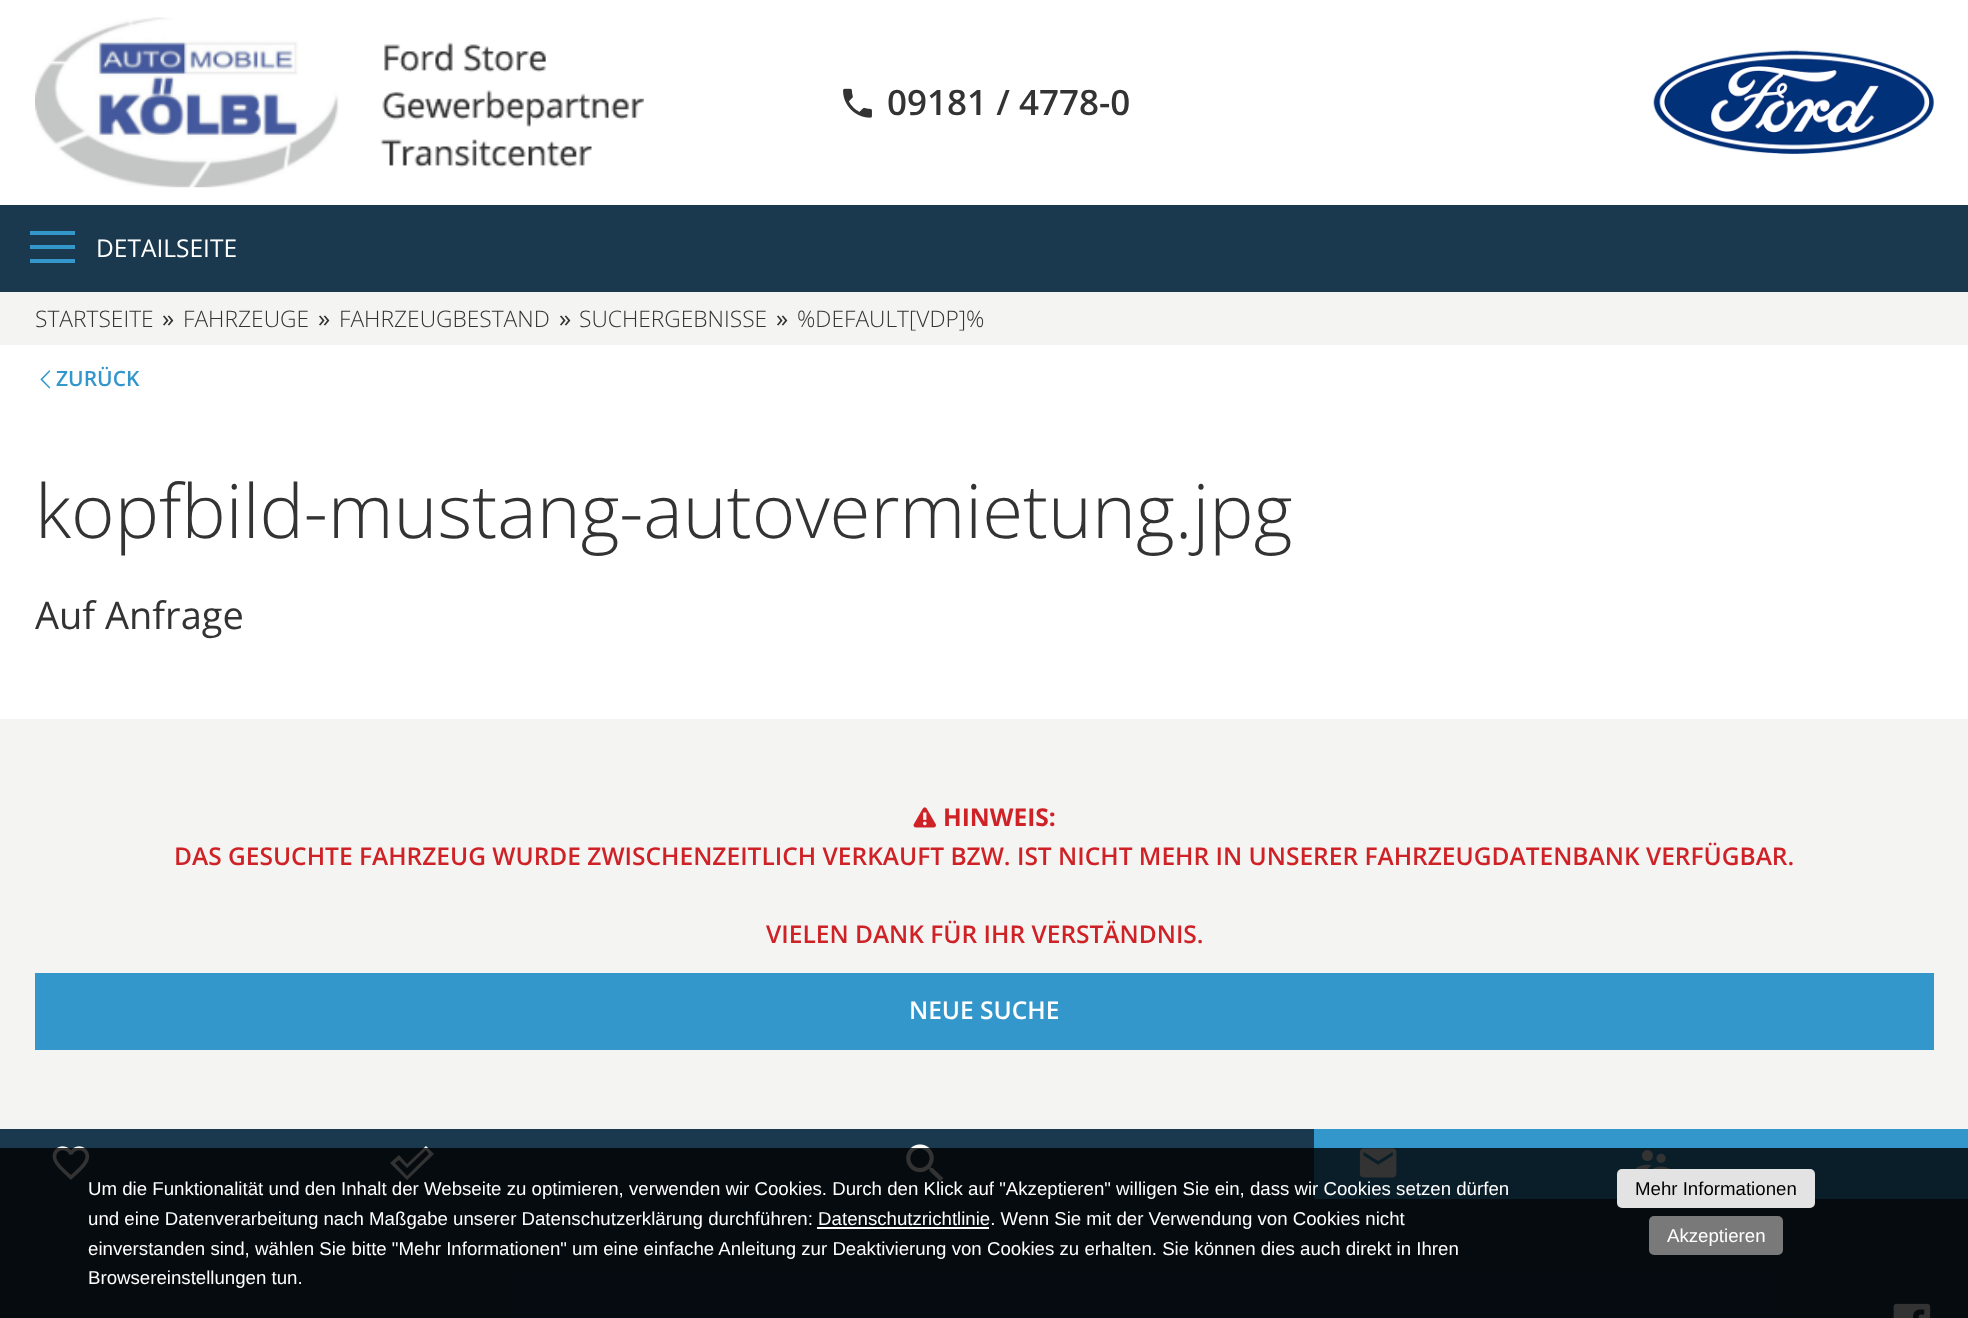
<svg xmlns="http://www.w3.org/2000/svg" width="1968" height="1318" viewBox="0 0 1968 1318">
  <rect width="100%" height="100%" fill="#ffffff"/>
  <image x="35" y="17" width="609" height="171" href="img1.png"/>
  <image x="843" y="88" width="29" height="30" href="img2.png"/>
  <text x="887" y="115" font-family="Open Sans" font-size="35" font-weight="600" fill="#333333">09181 / 4778-0</text>
  <image x="1653" y="50" width="281" height="104" href="img3.png"/>
  <rect x="0" y="205" width="1968" height="87" fill="#1b394e"/>
  <rect x="30" y="245" width="45" height="4" fill="#3497cb"/>
  <rect x="30" y="231" width="45" height="4" fill="#3497cb"/>
  <rect x="30" y="259" width="45" height="4" fill="#3497cb"/>
  <text x="96" y="257" font-family="Open Sans" font-size="24.5" fill="#ffffff">DETAILSEITE</text>
  <rect x="0" y="292" width="1968" height="53" fill="#f4f4f3"/>
  <text x="35" y="327" font-family="Open Sans" font-size="22.75" font-weight="300" fill="#333333">STARTSEITE</text>
  <text x="162" y="327" font-family="Open Sans" font-size="24.5" fill="#333333">»</text>
  <text x="183" y="327" font-family="Open Sans" font-size="22.75" font-weight="300" fill="#333333">FAHRZEUGE</text>
  <text x="318" y="327" font-family="Open Sans" font-size="24.5" fill="#333333">»</text>
  <text x="339" y="327" font-family="Open Sans" font-size="22.75" font-weight="300" fill="#333333">FAHRZEUGBESTAND</text>
  <text x="559" y="327" font-family="Open Sans" font-size="24.5" fill="#333333">»</text>
  <text x="579" y="327" font-family="Open Sans" font-size="22.75" font-weight="300" fill="#333333">SUCHERGEBNISSE</text>
  <text x="776" y="327" font-family="Open Sans" font-size="24.5" fill="#333333">»</text>
  <text x="797" y="327" font-family="Open Sans" font-size="22.75" font-weight="300" fill="#333333">%DEFAULT[VDP]%</text>
  <image x="40" y="370" width="11" height="19" href="img4.png"/>
  <text x="56" y="386" font-family="Open Sans" font-size="21" font-weight="600" fill="#3497cb">ZURÜCK</text>
  <text x="35" y="538" font-family="Open Sans" font-size="74.5" font-weight="300" fill="#333333">kopfbild-mustang-autovermietung.jpg</text>
  <text x="35" y="629" font-family="Open Sans" font-size="38" fill="#333333">Auf Anfrage</text>
  <rect x="0" y="719" width="1968" height="410" fill="#f4f4f3"/>
  <image x="913" y="807" width="23" height="21" href="img5.png"/>
  <text x="943" y="826" font-family="Open Sans" font-size="24.5" font-weight="bold" fill="#cf2227">HINWEIS:</text>
  <text x="174" y="865" font-family="Open Sans" font-size="24.5" font-weight="600" fill="#cf2227">DAS GESUCHTE FAHRZEUG WURDE ZWISCHENZEITLICH VERKAUFT BZW. IST NICHT MEHR IN UNSERER FAHRZEUGDATENBANK VERFÜGBAR.</text>
  <text x="766" y="943" font-family="Open Sans" font-size="24.5" font-weight="600" fill="#cf2227">VIELEN DANK FÜR IHR VERSTÄNDNIS.</text>
  <rect x="35" y="973" width="1899" height="77" fill="#3497cb"/>
  <text x="909" y="1019" font-family="Open Sans" font-size="24.5" font-weight="600" fill="#ffffff">NEUE SUCHE</text>
  <rect x="0" y="1129" width="1314" height="70" fill="#1b394e"/>
  <image x="52" y="1146" width="38" height="34" href="img6.png"/>
  <path d="M407 1180L390 1163L399 1155L407 1164L426 1146L434 1154ZM395 1163L407 1176L429 1154L426 1150L407 1168L399 1160Z" fill="#ffffff"/>
  <image x="906" y="1144" width="38" height="38" href="img7.png"/>
  <rect x="1314" y="1129" width="654" height="70" fill="#3497cb"/>
  <image x="1359" y="1148" width="38" height="30" href="img8.png"/>
  <image x="1635" y="1150" width="35" height="19" href="img9.png"/>
  <rect x="0" y="1199" width="1968" height="119" fill="#1b394e"/>
  <image x="1893" y="1303" width="38" height="15" href="img10.png"/>
  <rect x="0" y="1148" width="1968" height="170" fill="#000000" fill-opacity="0.8"/>
  <text x="88" y="1195" font-family="Liberation Sans" font-size="18.67" fill="#ffffff">Um die Funktionalität und den Inhalt der Webseite zu optimieren, verwenden wir Cookies. Durch den Klick auf "Akzeptieren" willigen Sie ein, dass wir Cookies setzen dürfen</text>
  <text x="88" y="1225" font-family="Liberation Sans" font-size="18.67" fill="#ffffff">und eine Datenverarbeitung nach Maßgabe unserer Datenschutzerklärung durchführen: Datenschutzrichtlinie. Wenn Sie mit der Verwendung von Cookies nicht</text>
  <rect x="817" y="1227" width="172" height="2" fill="#ffffff"/>
  <text x="88" y="1255" font-family="Liberation Sans" font-size="18.67" fill="#ffffff">einverstanden sind, wählen Sie bitte "Mehr Informationen" um eine einfache Anleitung zur Deaktivierung von Cookies zu erhalten. Sie können dies auch direkt in Ihren</text>
  <text x="88" y="1284" font-family="Liberation Sans" font-size="18.67" fill="#ffffff">Browsereinstellungen tun.</text>
  <rect x="1617" y="1169" width="198" height="39" rx="5" fill="#e3e3e3"/>
  <text x="1635" y="1195" font-family="Liberation Sans" font-size="18.67" fill="#000000">Mehr Informationen</text>
  <rect x="1649" y="1216" width="134" height="39" rx="5" fill="#797979"/>
  <text x="1667" y="1242" font-family="Liberation Sans" font-size="18.67" fill="#ffffff">Akzeptieren</text>
</svg>
